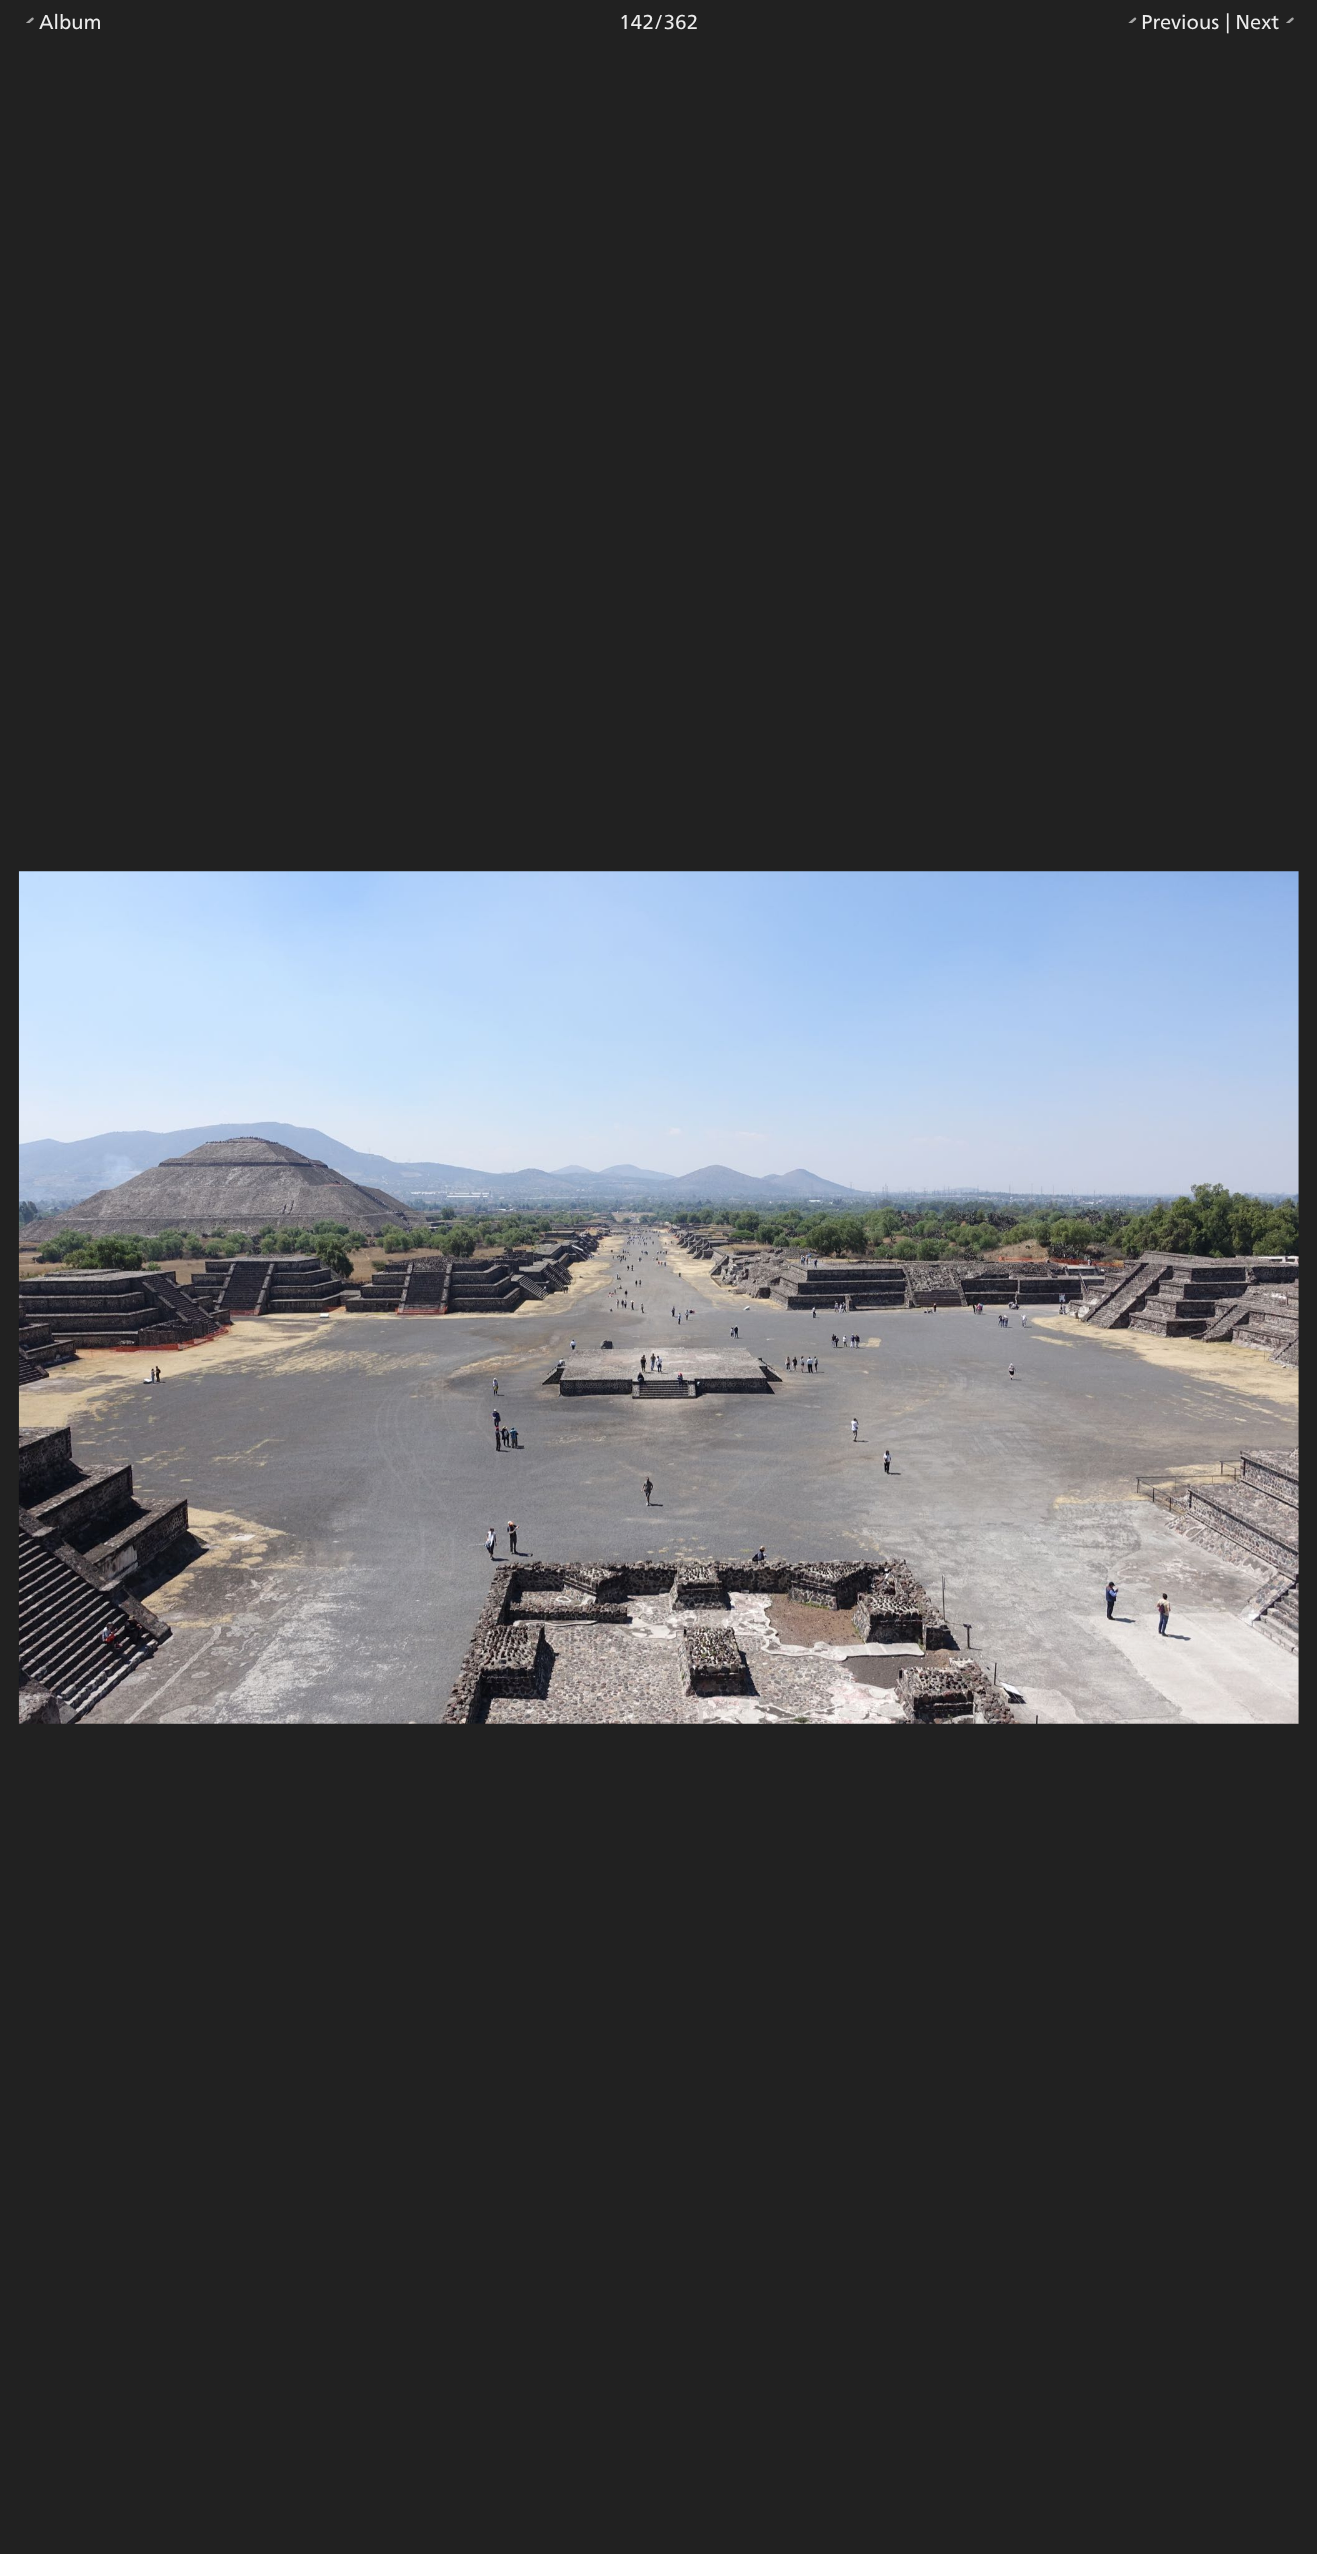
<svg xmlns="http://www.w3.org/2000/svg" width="1317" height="2554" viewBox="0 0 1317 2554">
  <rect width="100%" height="100%" fill="#212121"/>
  <image x="26" y="17" width="8" height="6" href="img1.png"/>
  <text x="39" y="29" font-family="'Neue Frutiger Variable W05'" font-size="20" fill="#ececec">Album</text>
  <text x="619" y="29" font-family="'Neue Frutiger Variable W05'" font-size="20" fill="#ececec">142/362</text>
  <image x="1128" y="17" width="9" height="6" href="img2.png"/>
  <text x="1141" y="29" font-family="'Neue Frutiger Variable W05'" font-size="20" fill="#ececec">Previous</text>
  <text x="1225" y="29" font-family="'Neue Frutiger Variable W05'" font-size="20" fill="#ececec">| Next</text>
  <image x="1286" y="17" width="8" height="6" href="img1.png"/>
  <image x="18" y="871" width="1281" height="853" href="img3.png"/>
</svg>
